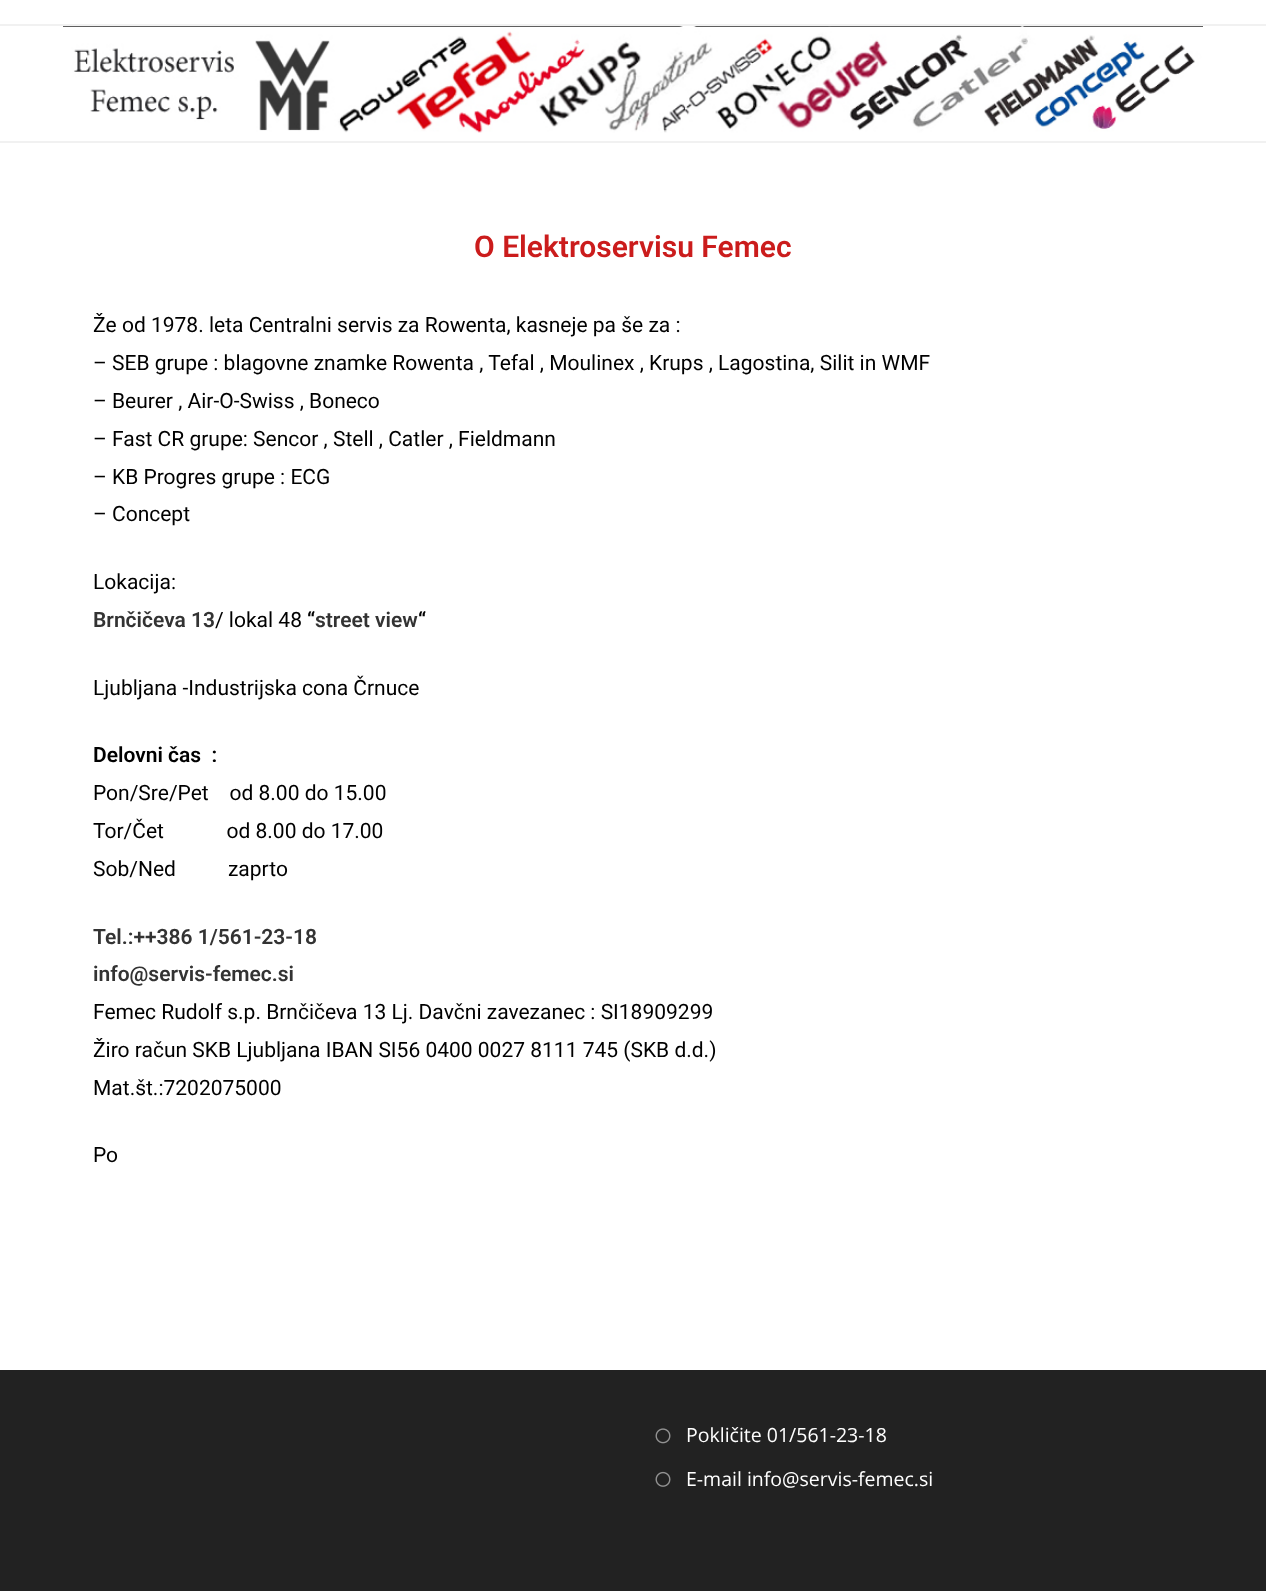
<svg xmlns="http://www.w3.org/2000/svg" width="1266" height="1591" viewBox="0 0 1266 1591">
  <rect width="100%" height="100%" fill="#ffffff"/>
  <rect x="0" y="24" width="1266" height="2" fill="#f1f1f1"/>
  <rect x="0" y="141" width="1266" height="2" fill="#f1f1f1"/>
  <image x="63" y="26" width="1140" height="107" href="img1.png"/>
  <text x="474" y="257" font-family="Roboto" font-size="30" font-weight="600" fill="#cb1c1c">O Elektroservisu Femec</text>
  <text x="93" y="332" font-family="Roboto" font-size="21" fill="#000000">Že od 1978. leta Centralni servis za Rowenta, kasneje pa še za :</text>
  <text x="93" y="370" font-family="Roboto" font-size="21" fill="#000000">– SEB grupe : blagovne znamke Rowenta , Tefal , Moulinex , Krups , Lagostina, Silit in WMF</text>
  <text x="93" y="408" font-family="Roboto" font-size="21" fill="#000000">– Beurer , Air-O-Swiss , Boneco</text>
  <text x="93" y="446" font-family="Roboto" font-size="21" fill="#000000">– Fast CR grupe: Sencor , Stell , Catler , Fieldmann</text>
  <text x="93" y="484" font-family="Roboto" font-size="21" fill="#000000">– KB Progres grupe : ECG</text>
  <text x="93" y="521" font-family="Roboto" font-size="21" fill="#000000">– Concept</text>
  <text x="93" y="589" font-family="Roboto" font-size="21" fill="#000000">Lokacija:</text>
  <text x="93" y="627" font-family="Roboto" font-size="21" font-weight="600" fill="#333333">Brnčičeva 13</text>
  <text x="215" y="627" font-family="Roboto" font-size="21" fill="#000000">/ lokal 48</text>
  <text x="307" y="627" font-family="Roboto" font-size="21" font-weight="600" fill="#000000">“</text>
  <text x="315" y="627" font-family="Roboto" font-size="21" font-weight="600" fill="#333333">street view</text>
  <text x="418" y="627" font-family="Roboto" font-size="21" font-weight="600" fill="#000000">“</text>
  <text x="93" y="695" font-family="Roboto" font-size="21" fill="#000000">Ljubljana -Industrijska cona Črnuce</text>
  <text x="93" y="762" font-family="Roboto" font-size="21" font-weight="600" fill="#000000" xml:space="preserve">Delovni čas  :</text>
  <text x="93" y="800" font-family="Roboto" font-size="21" fill="#000000" xml:space="preserve">Pon/Sre/Pet    od 8.00 do 15.00</text>
  <text x="93" y="838" font-family="Roboto" font-size="21" fill="#000000" xml:space="preserve">Tor/Čet            od 8.00 do 17.00</text>
  <text x="93" y="876" font-family="Roboto" font-size="21" fill="#000000" xml:space="preserve">Sob/Ned          zaprto</text>
  <text x="93" y="944" font-family="Roboto" font-size="21" font-weight="600" fill="#333333">Tel.:++386 1/561-23-18</text>
  <text x="93" y="981" font-family="Roboto" font-size="21" font-weight="600" fill="#333333">info@servis-femec.si</text>
  <text x="93" y="1019" font-family="Roboto" font-size="21" fill="#000000">Femec Rudolf s.p. Brnčičeva 13 Lj. Davčni zavezanec : SI18909299</text>
  <text x="93" y="1057" font-family="Roboto" font-size="21" fill="#000000">Žiro račun SKB Ljubljana IBAN SI56 0400 0027 8111 745 (SKB d.d.)</text>
  <text x="93" y="1095" font-family="Roboto" font-size="21" fill="#000000">Mat.št.:7202075000</text>
  <text x="93" y="1162" font-family="Roboto" font-size="21" fill="#000000">Po</text>
  <rect x="0" y="1370" width="1266" height="221" fill="#222222"/>
  <image x="655" y="1428" width="16" height="16" href="img2.png"/>
  <text x="686" y="1442" font-family="Open Sans" font-size="19.5" fill="#ffffff">Pokličite 01/561-23-18</text>
  <image x="655" y="1471" width="16" height="16" href="img3.png"/>
  <text x="686" y="1486" font-family="Open Sans" font-size="19.5" fill="#ffffff">E-mail info@servis-femec.si</text>
</svg>
